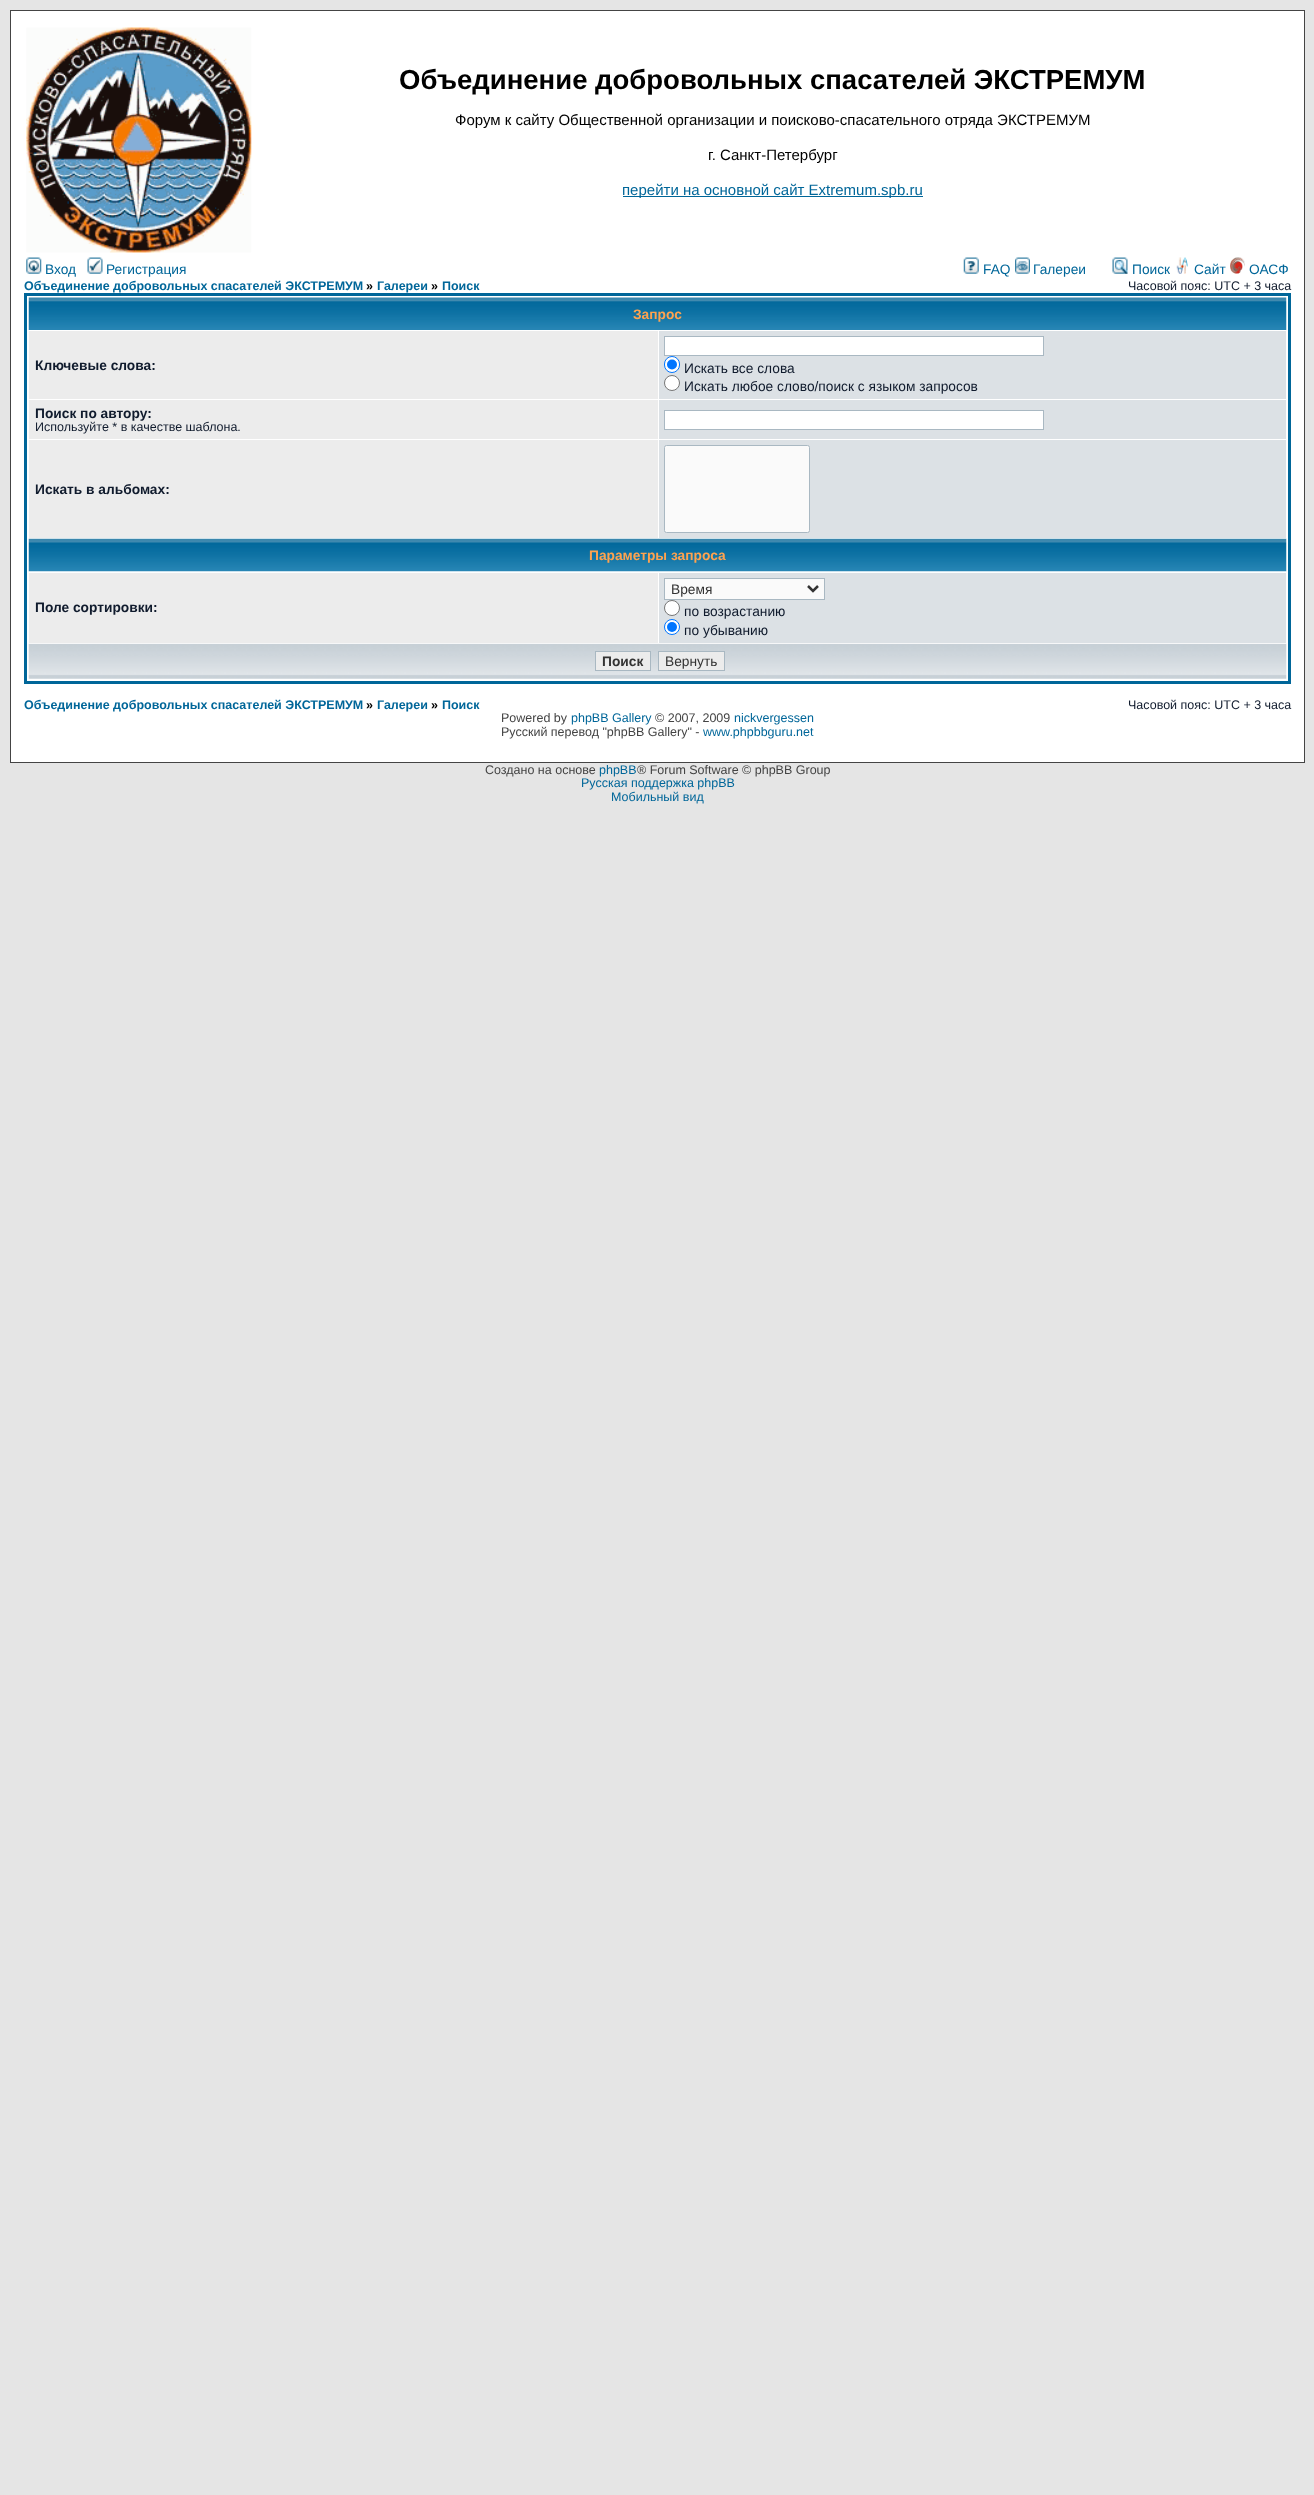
<svg xmlns="http://www.w3.org/2000/svg" width="1314" height="2495" viewBox="0 0 1314 2495">
  <rect width="100%" height="100%" fill="#e5e5e5"/>
  <rect x="10.5" y="10.5" width="1294" height="752" fill="#ffffff" stroke="#444444"/>
  <image x="26" y="27" width="226" height="226" href="img1.png"/>
  <text x="399" y="89" font-family="Liberation Sans" font-size="27.5" font-weight="bold" fill="#000000">Объединение добровольных спасателей ЭКСТРЕМУМ</text>
  <text x="455" y="125" font-family="Liberation Sans" font-size="15" fill="#000000">Форум к сайту Общественной организации и поисково-спасательного отряда ЭКСТРЕМУМ</text>
  <text x="708" y="160" font-family="Liberation Sans" font-size="15" fill="#000000">г. Санкт-Петербург</text>
  <rect x="623" y="196" width="300" height="1" fill="#006699"/>
  <text x="622" y="195" font-family="Liberation Sans" font-size="15" fill="#006699">перейти на основной сайт Еxtremum.spb.ru</text>
  <image x="26" y="257" width="16" height="17" href="img2.png"/>
  <text x="45" y="274" font-family="Liberation Sans" font-size="13.75" fill="#006699">Вход</text>
  <image x="87" y="257" width="16" height="17" href="img3.png"/>
  <text x="106" y="274" font-family="Liberation Sans" font-size="13.75" fill="#006699">Регистрация</text>
  <image x="963" y="257" width="16" height="17" href="img4.png"/>
  <text x="983" y="274" font-family="Liberation Sans" font-size="13.75" fill="#006699">FAQ</text>
  <image x="1015" y="257" width="15" height="17" href="img5.png"/>
  <text x="1033" y="274" font-family="Liberation Sans" font-size="13.75" fill="#006699">Галереи</text>
  <image x="1112" y="257" width="16" height="17" href="img6.png"/>
  <text x="1132" y="274" font-family="Liberation Sans" font-size="13.75" fill="#006699">Поиск</text>
  <image x="1176" y="257" width="12" height="17" href="img7.png"/>
  <text x="1194" y="274" font-family="Liberation Sans" font-size="13.75" fill="#006699">Сайт</text>
  <image x="1230" y="257" width="15" height="17" href="img8.png"/>
  <text x="1249" y="274" font-family="Liberation Sans" font-size="13.75" fill="#006699">ОАСФ</text>
  <text x="24" y="290" font-family="Liberation Sans" font-size="12.5" font-weight="bold" fill="#006699">Объединение добровольных спасателей ЭКСТРЕМУМ</text>
  <text x="366" y="290" font-family="Liberation Sans" font-size="12.5" font-weight="bold" fill="#000000">»</text>
  <text x="377" y="290" font-family="Liberation Sans" font-size="12.5" font-weight="bold" fill="#006699">Галереи</text>
  <text x="431" y="290" font-family="Liberation Sans" font-size="12.5" font-weight="bold" fill="#000000">»</text>
  <text x="442" y="290" font-family="Liberation Sans" font-size="12.5" font-weight="bold" fill="#006699">Поиск</text>
  <text x="1128" y="290" font-family="Liberation Sans" font-size="12.5" fill="#101b2d">Часовой пояс: UTC + 3 часа</text>
  <rect x="25.5" y="294.5" width="1264" height="388" fill="none" stroke="#006699" stroke-width="3"/>
  <image x="28" y="297" width="1259" height="33" href="img9.png"/>
  <text x="633" y="319" font-family="Liberation Sans" font-size="13.75" font-weight="bold" fill="#ffa34f">Запрос</text>
  <rect x="29" y="331" width="629" height="68" fill="#ececec"/>
  <text x="35" y="370" font-family="Liberation Sans" font-size="13.75" font-weight="bold" fill="#101b2d">Ключевые слова:</text>
  <rect x="659" y="331" width="627" height="68" fill="#dce1e5"/>
  <rect x="664.5" y="336.5" width="379" height="19" fill="#ffffff" stroke="#a9b8c2"/>
  <rect x="664.5" y="356.5" width="15" height="16" rx="7.5" fill="#ffffff" stroke="#0075ff"/>
  <circle cx="672" cy="364.5" r="5" fill="#0075ff"/>
  <text x="684" y="373" font-family="Liberation Sans" font-size="13.75" fill="#101b2d">Искать все слова</text>
  <circle cx="672" cy="383" r="7.5" fill="#ffffff" stroke="#767676"/>
  <text x="684" y="391" font-family="Liberation Sans" font-size="13.75" fill="#101b2d">Искать любое слово/поиск с языком запросов</text>
  <rect x="29" y="400" width="629" height="39" fill="#ececec"/>
  <text x="35" y="418" font-family="Liberation Sans" font-size="13.75" font-weight="bold" fill="#101b2d">Поиск по автору:</text>
  <text x="35" y="431" font-family="Liberation Sans" font-size="12.5" fill="#101b2d">Используйте * в качестве шаблона.</text>
  <rect x="659" y="400" width="627" height="39" fill="#dce1e5"/>
  <rect x="664.5" y="410.5" width="379" height="19" fill="#ffffff" stroke="#a9b8c2"/>
  <rect x="29" y="440" width="629" height="98" fill="#ececec"/>
  <text x="35" y="494" font-family="Liberation Sans" font-size="13.75" font-weight="bold" fill="#101b2d">Искать в альбомах:</text>
  <rect x="659" y="440" width="627" height="98" fill="#dce1e5"/>
  <rect x="664.5" y="445.5" width="145" height="87" rx="2" fill="#fafafa" stroke="#a9b8c2"/>
  <image x="28" y="538" width="1259" height="34" href="img10.png"/>
  <text x="589" y="560" font-family="Liberation Sans" font-size="13.75" font-weight="bold" fill="#ffa34f">Параметры запроса</text>
  <rect x="29" y="573" width="629" height="70" fill="#ececec"/>
  <text x="35" y="612" font-family="Liberation Sans" font-size="13.75" font-weight="bold" fill="#101b2d">Поле сортировки:</text>
  <rect x="659" y="573" width="627" height="70" fill="#dce1e5"/>
  <rect x="664.5" y="578.5" width="160" height="21" fill="#fafafa" stroke="#a9b8c2"/>
  <path d="M808 586L813 591L818 586" fill="none" stroke="#333333" stroke-width="2.5"/>
  <text x="671" y="594" font-family="Liberation Sans" font-size="13.75" fill="#333333">Время</text>
  <circle cx="672" cy="608" r="7.5" fill="#ffffff" stroke="#767676"/>
  <text x="684" y="616" font-family="Liberation Sans" font-size="13.75" fill="#101b2d">по возрастанию</text>
  <circle cx="672" cy="627" r="7.5" fill="#ffffff" stroke="#0075ff"/>
  <circle cx="672" cy="627" r="5" fill="#0075ff"/>
  <text x="684" y="635" font-family="Liberation Sans" font-size="13.75" fill="#101b2d">по убыванию</text>
  <image x="28" y="643" width="1259" height="36" href="img11.png"/>
  <rect x="595.5" y="651.5" width="55" height="19" fill="#ececec" stroke="#a9b8c2"/>
  <text x="602" y="666" font-family="Liberation Sans" font-size="13.75" font-weight="bold" fill="#333333">Поиск</text>
  <rect x="658.5" y="651.5" width="66" height="19" fill="#ececec" stroke="#a9b8c2"/>
  <text x="665" y="666" font-family="Liberation Sans" font-size="13.75" fill="#333333">Вернуть</text>
  <text x="24" y="709" font-family="Liberation Sans" font-size="12.5" font-weight="bold" fill="#006699">Объединение добровольных спасателей ЭКСТРЕМУМ</text>
  <text x="366" y="709" font-family="Liberation Sans" font-size="12.5" font-weight="bold" fill="#000000">»</text>
  <text x="377" y="709" font-family="Liberation Sans" font-size="12.5" font-weight="bold" fill="#006699">Галереи</text>
  <text x="431" y="709" font-family="Liberation Sans" font-size="12.5" font-weight="bold" fill="#000000">»</text>
  <text x="442" y="709" font-family="Liberation Sans" font-size="12.5" font-weight="bold" fill="#006699">Поиск</text>
  <text x="1128" y="709" font-family="Liberation Sans" font-size="12.5" fill="#101b2d">Часовой пояс: UTC + 3 часа</text>
  <text x="501" y="722" font-family="Liberation Sans" font-size="12.5" fill="#444444">Powered by</text>
  <text x="571" y="722" font-family="Liberation Sans" font-size="12.5" fill="#006699">phpBB Gallery</text>
  <text x="655" y="722" font-family="Liberation Sans" font-size="12.5" fill="#444444">© 2007, 2009</text>
  <text x="734" y="722" font-family="Liberation Sans" font-size="12.5" fill="#006699">nickvergessen</text>
  <text x="501" y="736" font-family="Liberation Sans" font-size="12.5" fill="#444444">Русский перевод "phpBB Gallery" -</text>
  <text x="703" y="736" font-family="Liberation Sans" font-size="12.5" fill="#006699">www.phpbbguru.net</text>
  <text x="485" y="774" font-family="Liberation Sans" font-size="12.5" fill="#444444">Создано на основе</text>
  <text x="599" y="774" font-family="Liberation Sans" font-size="12.5" fill="#006699">phpBB</text>
  <text x="637" y="774" font-family="Liberation Sans" font-size="12.5" fill="#444444">® Forum Software © phpBB Group</text>
  <text x="581" y="787" font-family="Liberation Sans" font-size="12.5" fill="#006699">Русская поддержка phpBB</text>
  <text x="611" y="801" font-family="Liberation Sans" font-size="12.5" fill="#006699">Мобильный вид</text>
</svg>
